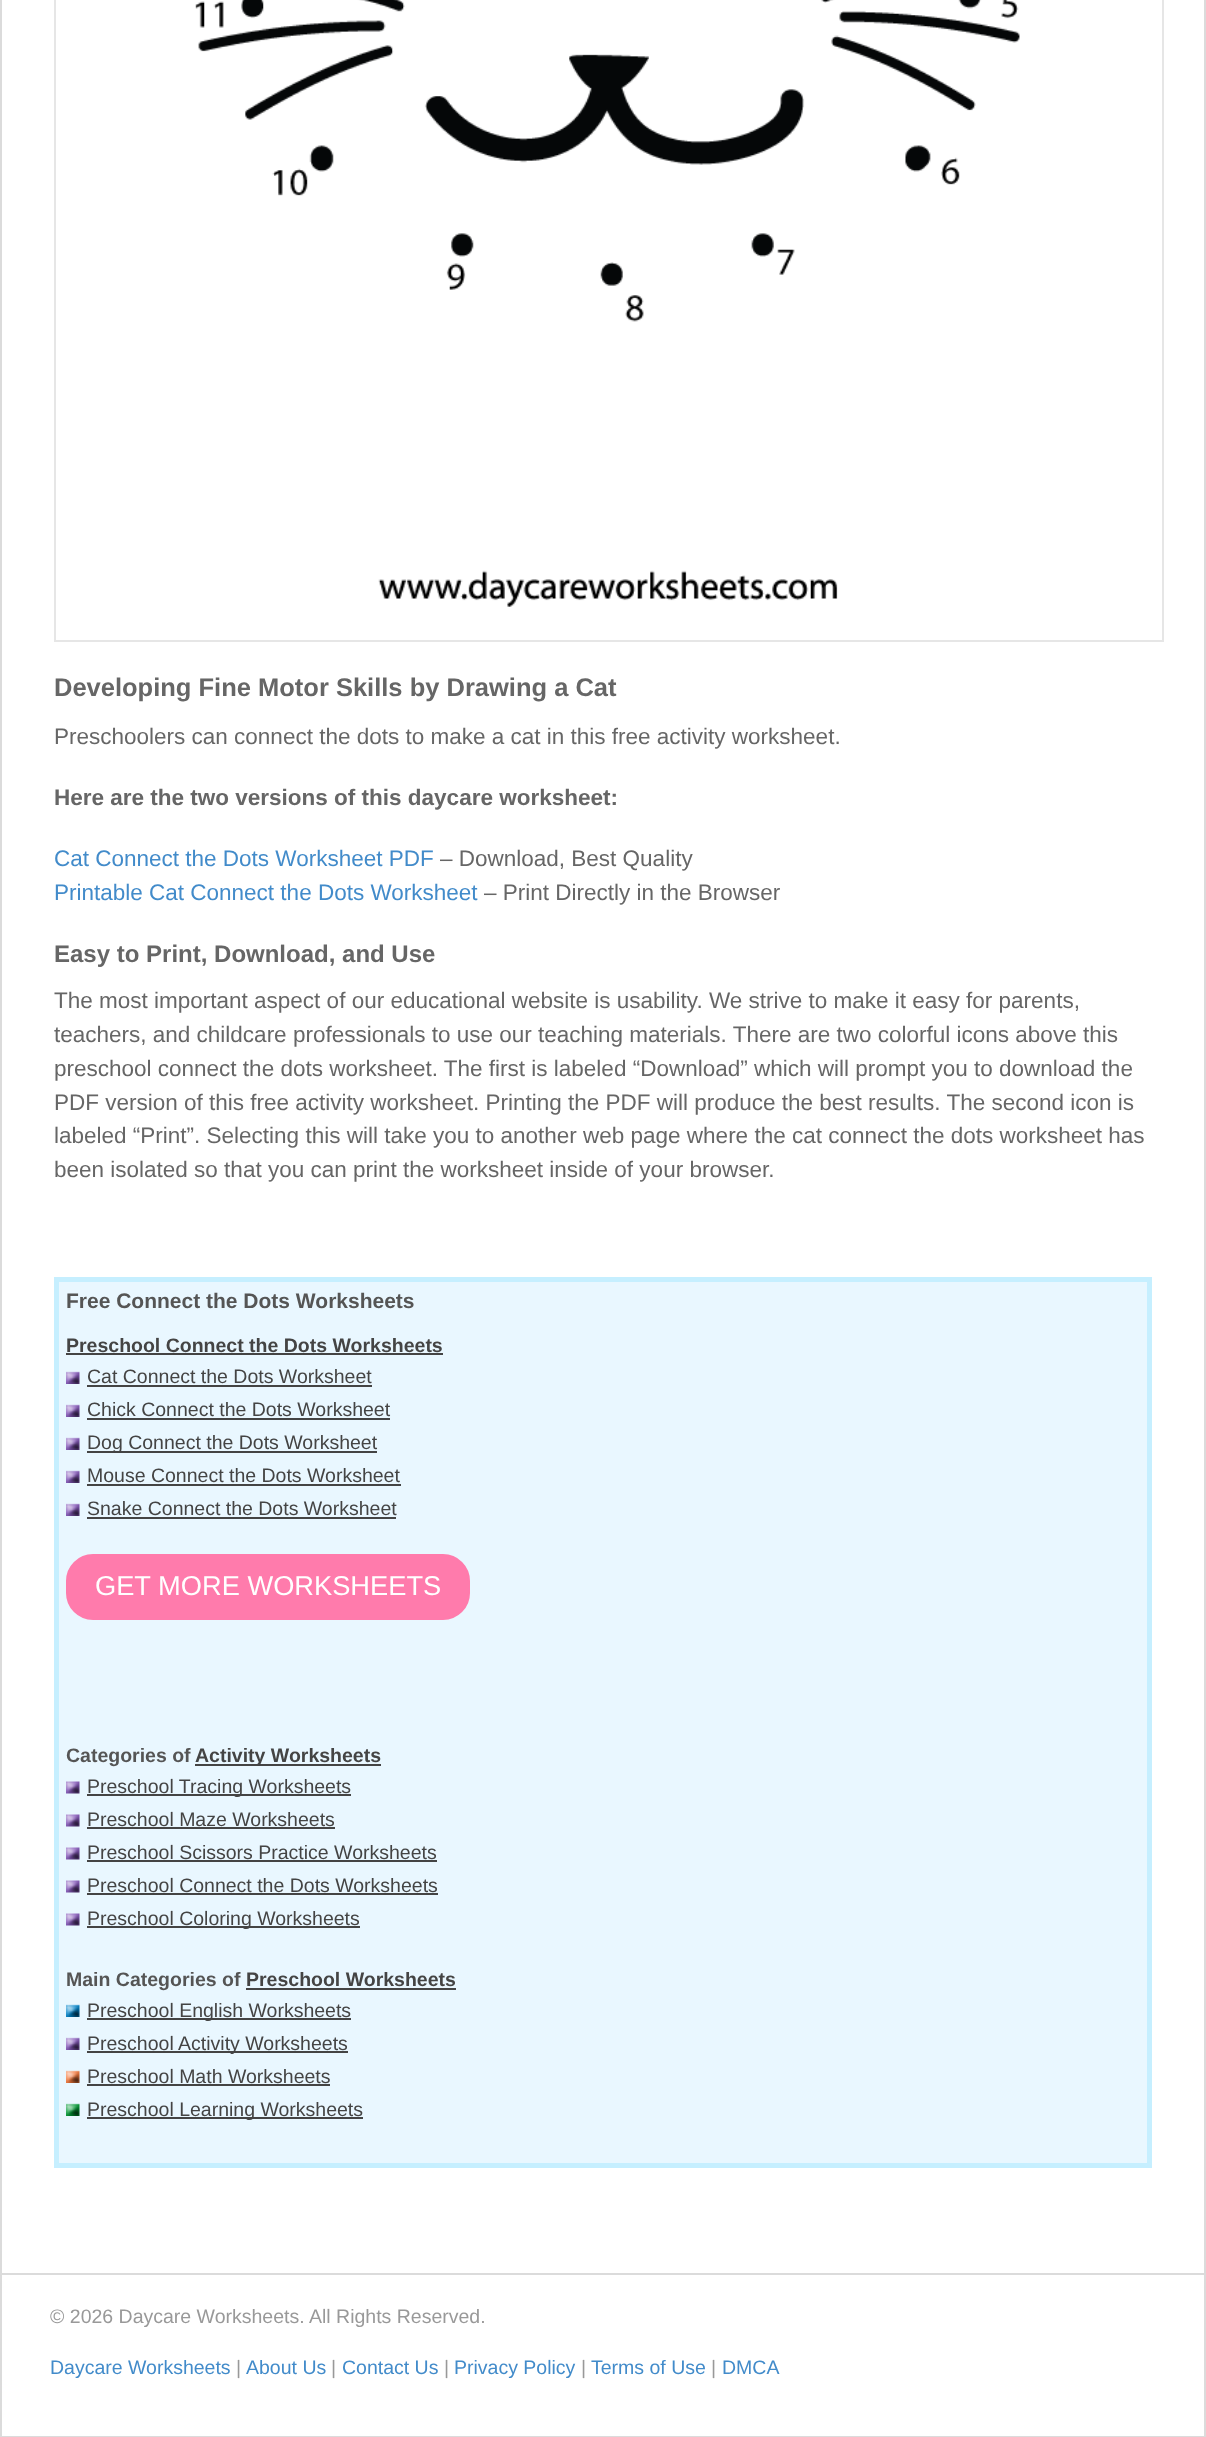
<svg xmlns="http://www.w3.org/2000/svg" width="1206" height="2437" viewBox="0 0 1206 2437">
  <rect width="100%" height="100%" fill="#ffffff"/>
  <rect x="1" y="-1" width="1204" height="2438" fill="none" stroke="#dbdbdb" stroke-width="2"/>
  <rect x="55" y="-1" width="1108" height="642" fill="none" stroke="#e6e6e6" stroke-width="2"/>
  <image x="195" y="0" width="825" height="607" href="img1.png"/>
  <text x="54" y="696" font-family="Liberation Sans" font-size="25.5" font-weight="bold" fill="#666666">Developing Fine Motor Skills by Drawing a Cat</text>
  <text x="54" y="744" font-family="Liberation Sans" font-size="22.5" fill="#666666">Preschoolers can connect the dots to make a cat in this free activity worksheet.</text>
  <text x="54" y="805" font-family="Liberation Sans" font-size="22.5" font-weight="bold" fill="#666666">Here are the two versions of this daycare worksheet:</text>
  <text x="54" y="866" font-family="Liberation Sans" font-size="22.5" fill="#428bca">Cat Connect the Dots Worksheet PDF</text>
  <text x="440" y="866" font-family="Liberation Sans" font-size="22.5" fill="#666666">– Download, Best Quality</text>
  <text x="54" y="900" font-family="Liberation Sans" font-size="22.5" fill="#428bca">Printable Cat Connect the Dots Worksheet</text>
  <text x="484" y="900" font-family="Liberation Sans" font-size="22.5" fill="#666666">– Print Directly in the Browser</text>
  <text x="54" y="962" font-family="Liberation Sans" font-size="24" font-weight="bold" fill="#666666">Easy to Print, Download, and Use</text>
  <text x="54" y="1008" font-family="Liberation Sans" font-size="22.5" fill="#666666">The most important aspect of our educational website is usability. We strive to make it easy for parents,</text>
  <text x="54" y="1042" font-family="Liberation Sans" font-size="22.5" fill="#666666">teachers, and childcare professionals to use our teaching materials. There are two colorful icons above this</text>
  <text x="54" y="1076" font-family="Liberation Sans" font-size="22.5" fill="#666666">preschool connect the dots worksheet. The first is labeled “Download” which will prompt you to download the</text>
  <text x="54" y="1110" font-family="Liberation Sans" font-size="22.5" fill="#666666">PDF version of this free activity worksheet. Printing the PDF will produce the best results. The second icon is</text>
  <text x="54" y="1143" font-family="Liberation Sans" font-size="22.5" fill="#666666">labeled “Print”. Selecting this will take you to another web page where the cat connect the dots worksheet has</text>
  <text x="54" y="1177" font-family="Liberation Sans" font-size="22.5" fill="#666666">been isolated so that you can print the worksheet inside of your browser.</text>
  <rect x="56.5" y="1279.5" width="1093" height="886" fill="#e9f7ff" stroke="#c6efff" stroke-width="5"/>
  <text x="66" y="1308" font-family="Liberation Sans" font-size="21" font-weight="bold" fill="#555555">Free Connect the Dots Worksheets</text>
  <text x="66" y="1352" font-family="Liberation Sans" font-size="19.5" font-weight="bold" fill="#444444">Preschool Connect the Dots Worksheets</text>
  <rect x="66" y="1353" width="377" height="2" fill="#444444"/>
  <image x="66" y="1371" width="14" height="13" href="img2.png"/>
  <text x="87" y="1383" font-family="Liberation Sans" font-size="19.5" fill="#444444">Cat Connect the Dots Worksheet</text>
  <rect x="87" y="1385" width="285" height="2" fill="#444444"/>
  <image x="66" y="1404" width="14" height="13" href="img2.png"/>
  <text x="87" y="1416" font-family="Liberation Sans" font-size="19.5" fill="#444444">Chick Connect the Dots Worksheet</text>
  <rect x="87" y="1418" width="303" height="2" fill="#444444"/>
  <image x="66" y="1437" width="14" height="13" href="img2.png"/>
  <rect x="87" y="1451" width="290" height="2" fill="#444444"/>
  <text x="87" y="1449" font-family="Liberation Sans" font-size="19.5" fill="#444444">Dog Connect the Dots Worksheet</text>
  <image x="66" y="1470" width="14" height="13" href="img2.png"/>
  <text x="87" y="1482" font-family="Liberation Sans" font-size="19.5" fill="#444444">Mouse Connect the Dots Worksheet</text>
  <rect x="87" y="1484" width="314" height="2" fill="#444444"/>
  <image x="66" y="1503" width="14" height="13" href="img2.png"/>
  <text x="87" y="1515" font-family="Liberation Sans" font-size="19.5" fill="#444444">Snake Connect the Dots Worksheet</text>
  <rect x="87" y="1517" width="309" height="2" fill="#444444"/>
  <rect x="67" y="1555" width="402" height="64" rx="26" fill="#ff7bac" stroke="#ff7bac" stroke-width="2"/>
  <text x="95" y="1595" font-family="Liberation Sans" font-size="27.25" fill="#ffffff">GET MORE WORKSHEETS</text>
  <text x="66" y="1762" font-family="Liberation Sans" font-size="19.5" font-weight="bold" fill="#555555">Categories of</text>
  <rect x="195" y="1764" width="186" height="2" fill="#444444"/>
  <text x="195" y="1762" font-family="Liberation Sans" font-size="19.5" font-weight="bold" fill="#444444">Activity Worksheets</text>
  <image x="66" y="1781" width="14" height="13" href="img3.png"/>
  <rect x="87" y="1794" width="264" height="2" fill="#444444"/>
  <text x="87" y="1793" font-family="Liberation Sans" font-size="19.5" fill="#444444">Preschool Tracing Worksheets</text>
  <image x="66" y="1814" width="14" height="13" href="img3.png"/>
  <text x="87" y="1826" font-family="Liberation Sans" font-size="19.5" fill="#444444">Preschool Maze Worksheets</text>
  <rect x="87" y="1827" width="248" height="2" fill="#444444"/>
  <image x="66" y="1847" width="14" height="13" href="img3.png"/>
  <text x="87" y="1859" font-family="Liberation Sans" font-size="19.5" fill="#444444">Preschool Scissors Practice Worksheets</text>
  <rect x="87" y="1860" width="350" height="2" fill="#444444"/>
  <image x="66" y="1880" width="14" height="13" href="img3.png"/>
  <text x="87" y="1892" font-family="Liberation Sans" font-size="19.5" fill="#444444">Preschool Connect the Dots Worksheets</text>
  <rect x="87" y="1893" width="351" height="2" fill="#444444"/>
  <image x="66" y="1913" width="14" height="13" href="img3.png"/>
  <rect x="87" y="1926" width="273" height="2" fill="#444444"/>
  <text x="87" y="1925" font-family="Liberation Sans" font-size="19.5" fill="#444444">Preschool Coloring Worksheets</text>
  <text x="66" y="1986" font-family="Liberation Sans" font-size="19.5" font-weight="bold" fill="#555555">Main Categories of</text>
  <text x="246" y="1986" font-family="Liberation Sans" font-size="19.5" font-weight="bold" fill="#444444">Preschool Worksheets</text>
  <rect x="246" y="1988" width="210" height="2" fill="#444444"/>
  <image x="66" y="2004" width="14" height="13" href="img4.png"/>
  <rect x="87" y="2018" width="264" height="2" fill="#444444"/>
  <text x="87" y="2017" font-family="Liberation Sans" font-size="19.5" fill="#444444">Preschool English Worksheets</text>
  <image x="66" y="2037" width="14" height="13" href="img2.png"/>
  <rect x="87" y="2051" width="261" height="2" fill="#444444"/>
  <text x="87" y="2050" font-family="Liberation Sans" font-size="19.5" fill="#444444">Preschool Activity Worksheets</text>
  <image x="66" y="2070" width="14" height="13" href="img5.png"/>
  <text x="87" y="2083" font-family="Liberation Sans" font-size="19.5" fill="#444444">Preschool Math Worksheets</text>
  <rect x="87" y="2084" width="243" height="2" fill="#444444"/>
  <image x="66" y="2103" width="14" height="13" href="img6.png"/>
  <rect x="87" y="2117" width="276" height="2" fill="#444444"/>
  <text x="87" y="2116" font-family="Liberation Sans" font-size="19.5" fill="#444444">Preschool Learning Worksheets</text>
  <rect x="2" y="2273" width="1203" height="2" fill="#dbdbdb"/>
  <text x="50" y="2323" font-family="Liberation Sans" font-size="19.5" fill="#999999">© 2026 Daycare Worksheets. All Rights Reserved.</text>
  <text x="50" y="2374" font-family="Liberation Sans" font-size="19.5" fill="#428bca">Daycare Worksheets</text>
  <text x="236" y="2374" font-family="Liberation Sans" font-size="19.5" fill="#999999">|</text>
  <text x="246" y="2374" font-family="Liberation Sans" font-size="19.5" fill="#428bca">About Us</text>
  <text x="331" y="2374" font-family="Liberation Sans" font-size="19.5" fill="#999999">|</text>
  <text x="342" y="2374" font-family="Liberation Sans" font-size="19.5" fill="#428bca">Contact Us</text>
  <text x="444" y="2374" font-family="Liberation Sans" font-size="19.5" fill="#999999">|</text>
  <text x="454" y="2374" font-family="Liberation Sans" font-size="19.5" fill="#428bca">Privacy Policy</text>
  <text x="581" y="2374" font-family="Liberation Sans" font-size="19.5" fill="#999999">|</text>
  <text x="591" y="2374" font-family="Liberation Sans" font-size="19.5" fill="#428bca">Terms of Use</text>
  <text x="711" y="2374" font-family="Liberation Sans" font-size="19.5" fill="#999999">|</text>
  <text x="722" y="2374" font-family="Liberation Sans" font-size="19.5" fill="#428bca">DMCA</text>
</svg>
